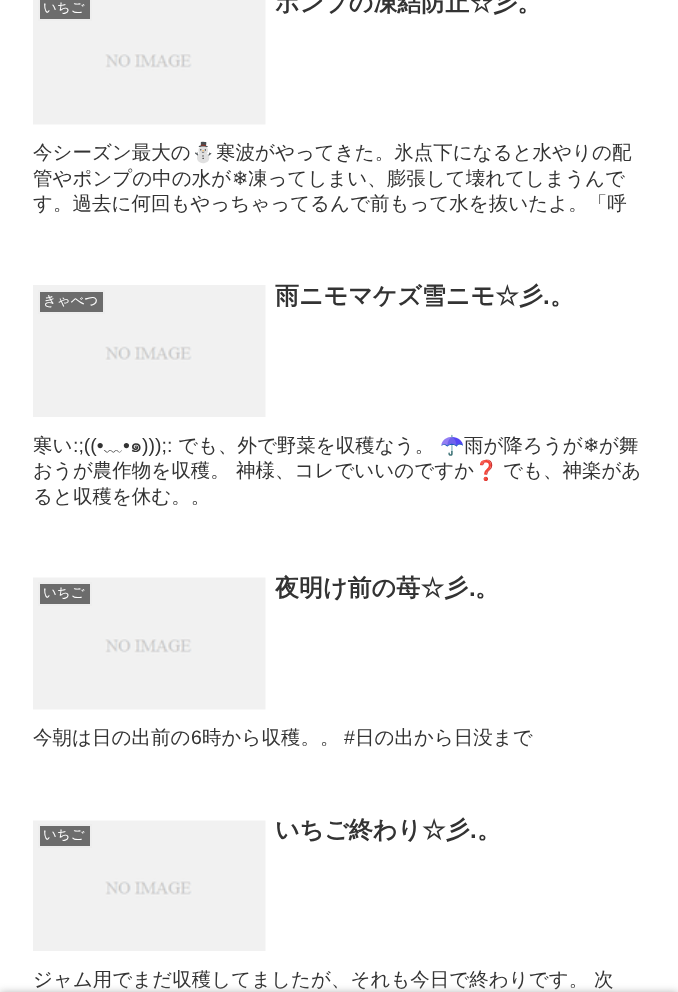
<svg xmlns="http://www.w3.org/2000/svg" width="678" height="992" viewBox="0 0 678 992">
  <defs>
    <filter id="blur1" x="-50%" y="-200%" width="200%" height="500%"><feGaussianBlur stdDeviation="4"/></filter>
  </defs>
  <rect width="100%" height="100%" fill="#ffffff"/>
  <text x="275" y="11" font-family="WenQuanYi Zen Hei" font-size="24" font-weight="bold" fill="#333333">ポンプの凍結防止☆彡。</text>
  <text x="33" y="159" font-family="WenQuanYi Zen Hei" font-size="19.5" font-weight="500" fill="#333333">今シーズン最大の</text>
  <text x="191" y="159" font-family="Noto Color Emoji" font-size="19.5" fill="#333333">⛄</text>
  <text x="216" y="159" font-family="WenQuanYi Zen Hei" font-size="19.5" font-weight="500" fill="#333333">寒波がやってきた。氷点下になると水やりの配</text>
  <text x="33" y="185" font-family="WenQuanYi Zen Hei" font-size="19.5" font-weight="500" fill="#333333">管やポンプの中の水が</text>
  <text x="232" y="185" font-family="DejaVu Sans" font-size="19.5" fill="#333333">❄</text>
  <text x="248" y="185" font-family="WenQuanYi Zen Hei" font-size="19.5" font-weight="500" fill="#333333">凍ってしまい、膨張して壊れてしまうんで</text>
  <text x="33" y="210" font-family="WenQuanYi Zen Hei" font-size="19.5" font-weight="500" fill="#333333">す。過去に何回もやっちゃってるんで前もって水を抜いたよ。「呼</text>
  <image x="33" y="0" width="233" height="125" href="img1.png"/>
  <rect x="39" y="-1" width="52" height="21" fill="#6c6c6c" stroke="#eeeeee" stroke-width="2"/>
  <text x="43" y="12" font-family="WenQuanYi Zen Hei" font-size="13.5" font-weight="500" fill="#ffffff">いちご</text>
  <text x="275" y="304" font-family="WenQuanYi Zen Hei" font-size="24" font-weight="bold" fill="#333333">雨ニモマケズ雪ニモ☆彡</text>
  <text x="543" y="304" font-family="Liberation Sans" font-size="24" font-weight="bold" fill="#333333">.</text>
  <text x="550" y="304" font-family="WenQuanYi Zen Hei" font-size="24" font-weight="bold" fill="#333333">。</text>
  <text x="33" y="452" font-family="WenQuanYi Zen Hei" font-size="19.5" font-weight="500" fill="#333333">寒い</text>
  <text x="73" y="452" font-family="Liberation Sans" font-size="19.5" fill="#333333">:;((•</text>
  <text x="104" y="452" font-family="WenQuanYi Zen Hei" font-size="19.5" font-weight="500" fill="#333333">﹏</text>
  <text x="123" y="452" font-family="Liberation Sans" font-size="19.5" fill="#333333">•</text>
  <text x="130" y="452" font-family="Loma" font-size="19.5" fill="#333333">๑</text>
  <text x="142" y="452" font-family="Liberation Sans" font-size="19.5" fill="#333333">)));:</text>
  <text x="178" y="452" font-family="WenQuanYi Zen Hei" font-size="19.5" font-weight="500" fill="#333333">でも、外で野菜を収穫なう。</text>
  <text x="440" y="452" font-family="Noto Color Emoji" font-size="19.5" fill="#333333">☂️</text>
  <text x="464" y="452" font-family="WenQuanYi Zen Hei" font-size="19.5" font-weight="500" fill="#333333">雨が降ろうが</text>
  <text x="583" y="452" font-family="DejaVu Sans" font-size="19.5" fill="#333333">❄</text>
  <text x="599" y="452" font-family="WenQuanYi Zen Hei" font-size="19.5" font-weight="500" fill="#333333">が舞</text>
  <text x="33" y="477" font-family="WenQuanYi Zen Hei" font-size="19.5" font-weight="500" fill="#333333">おうが農作物を収穫。</text>
  <text x="236" y="477" font-family="WenQuanYi Zen Hei" font-size="19.5" font-weight="500" fill="#333333">神様、コレでいいのですか</text>
  <text x="474" y="477" font-family="Noto Color Emoji" font-size="19.5" fill="#333333">❓</text>
  <text x="503" y="477" font-family="WenQuanYi Zen Hei" font-size="19.5" font-weight="500" fill="#333333">でも、神楽があ</text>
  <text x="33" y="503" font-family="WenQuanYi Zen Hei" font-size="19.5" font-weight="500" fill="#333333">ると収穫を休む。。</text>
  <image x="33" y="285" width="233" height="132" href="img2.png"/>
  <rect x="39" y="291" width="65" height="22" fill="#6c6c6c" stroke="#eeeeee" stroke-width="2"/>
  <text x="43" y="305" font-family="WenQuanYi Zen Hei" font-size="13.5" font-weight="500" fill="#ffffff">きゃべつ</text>
  <text x="275" y="596" font-family="WenQuanYi Zen Hei" font-size="24" font-weight="bold" fill="#333333">夜明け前の苺☆彡</text>
  <text x="469" y="596" font-family="Liberation Sans" font-size="24" font-weight="bold" fill="#333333">.</text>
  <text x="475" y="596" font-family="WenQuanYi Zen Hei" font-size="24" font-weight="bold" fill="#333333">。</text>
  <text x="33" y="744" font-family="WenQuanYi Zen Hei" font-size="19.5" font-weight="500" fill="#333333">今朝は日の出前の</text>
  <text x="191" y="744" font-family="Liberation Sans" font-size="19.5" fill="#333333">6</text>
  <text x="202" y="744" font-family="WenQuanYi Zen Hei" font-size="19.5" font-weight="500" fill="#333333">時から収穫。。</text>
  <text x="344" y="744" font-family="Liberation Sans" font-size="19.5" fill="#333333">#</text>
  <text x="355" y="744" font-family="WenQuanYi Zen Hei" font-size="19.5" font-weight="500" fill="#333333">日の出から日没まで</text>
  <image x="33" y="577" width="233" height="133" href="img3.png"/>
  <rect x="39" y="583" width="52" height="22" fill="#6c6c6c" stroke="#eeeeee" stroke-width="2"/>
  <text x="43" y="597" font-family="WenQuanYi Zen Hei" font-size="13.5" font-weight="500" fill="#ffffff">いちご</text>
  <text x="275" y="838" font-family="WenQuanYi Zen Hei" font-size="24" font-weight="bold" fill="#333333">いちご終わり☆彡</text>
  <text x="470" y="838" font-family="Liberation Sans" font-size="24" font-weight="bold" fill="#333333">.</text>
  <text x="477" y="838" font-family="WenQuanYi Zen Hei" font-size="24" font-weight="bold" fill="#333333">。</text>
  <text x="33" y="986" font-family="WenQuanYi Zen Hei" font-size="19.5" font-weight="500" fill="#333333">ジャム用でまだ収穫してましたが、それも今日で終わりです。</text>
  <text x="594" y="986" font-family="WenQuanYi Zen Hei" font-size="19.5" font-weight="500" fill="#333333">次</text>
  <image x="33" y="820" width="233" height="131" href="img4.png"/>
  <rect x="39" y="825" width="52" height="22" fill="#6c6c6c" stroke="#eeeeee" stroke-width="2"/>
  <text x="43" y="839" font-family="WenQuanYi Zen Hei" font-size="13.5" font-weight="500" fill="#ffffff">いちご</text>
  <rect x="0" y="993" width="678" height="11" fill="#a9a9a9" filter="url(#blur1)"/>
</svg>
